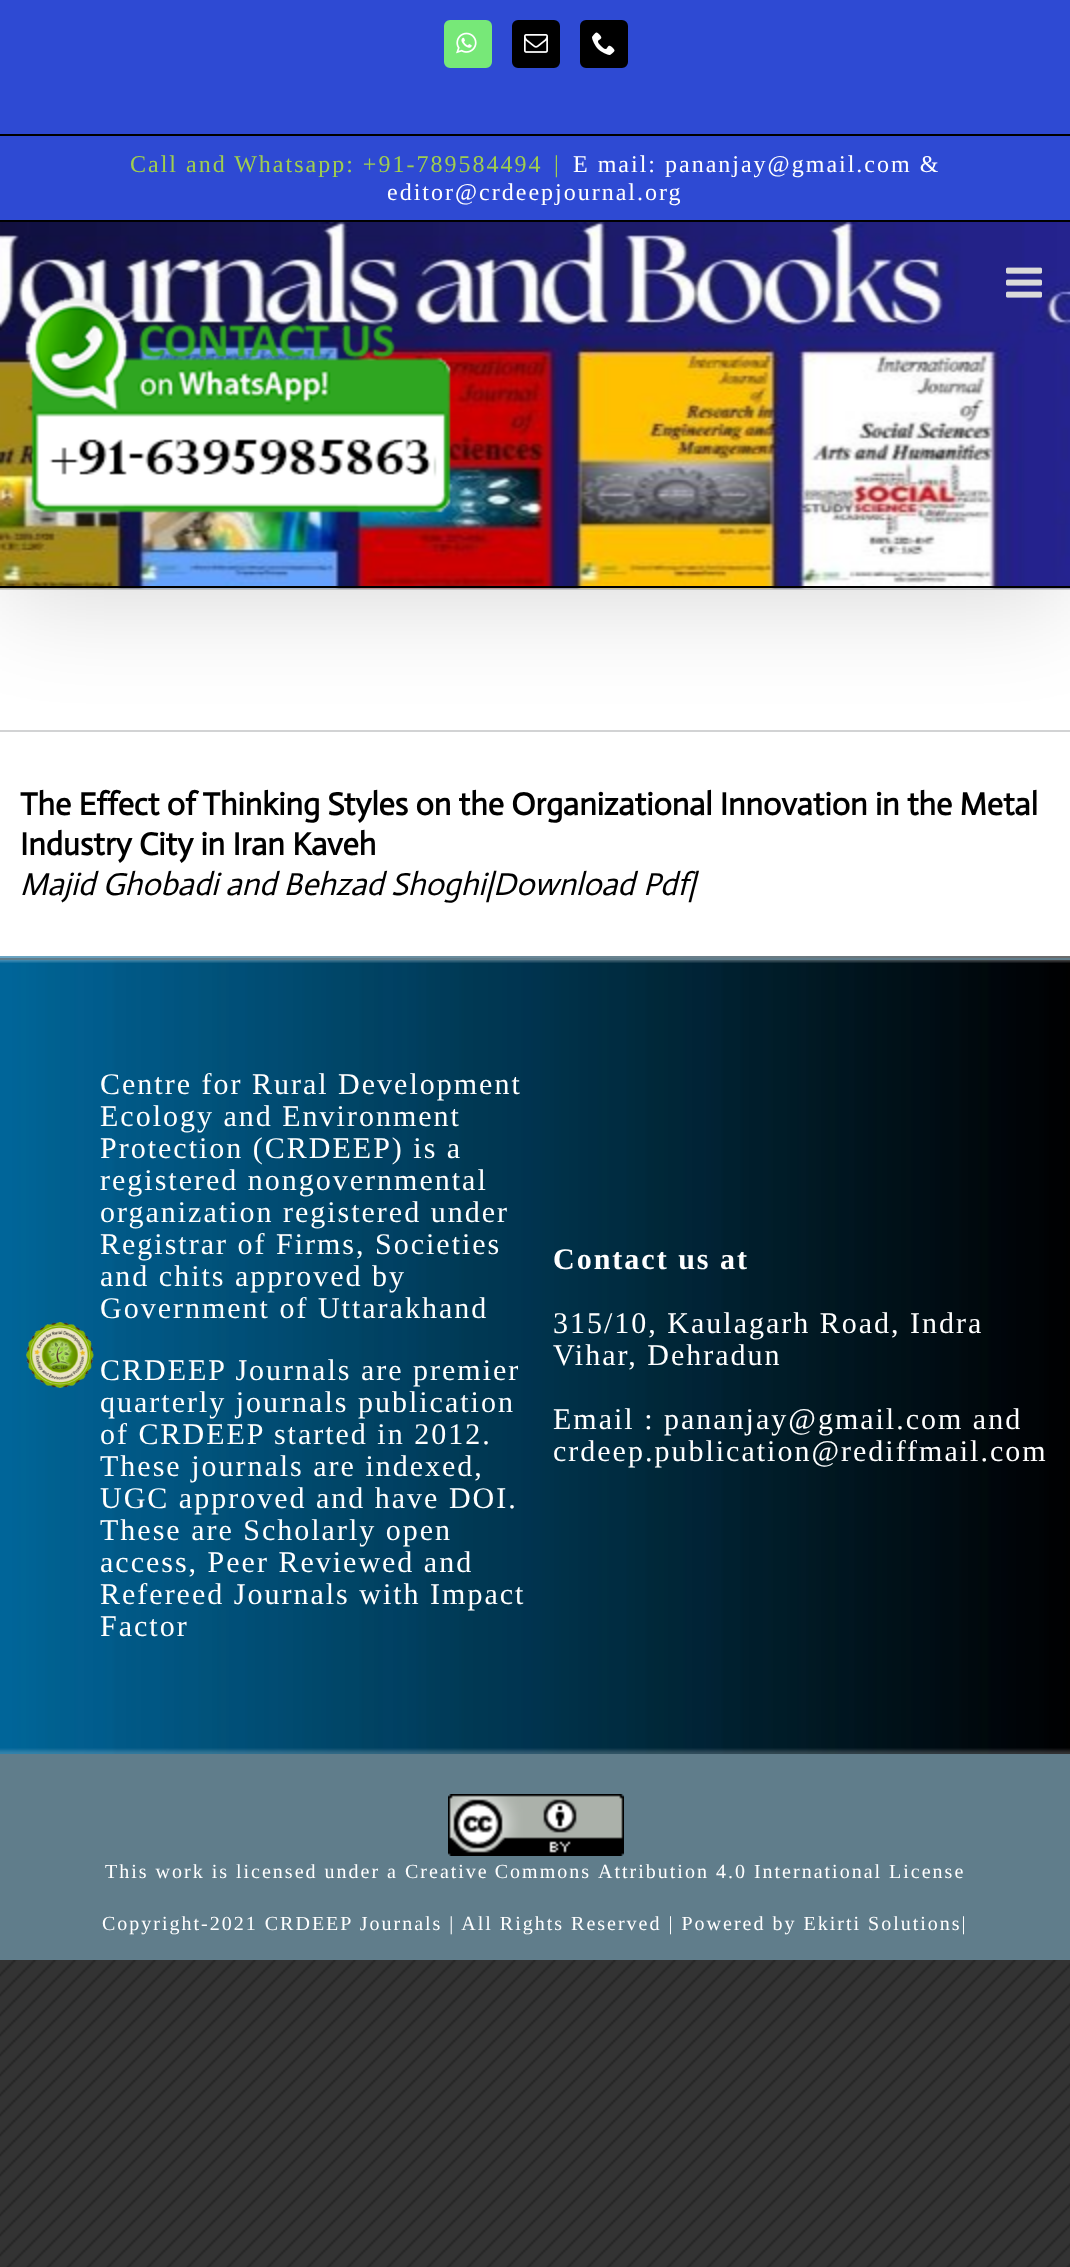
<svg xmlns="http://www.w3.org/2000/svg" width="1070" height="2267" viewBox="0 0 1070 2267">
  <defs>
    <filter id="blur1" x="-50%" y="-200%" width="200%" height="500%"><feGaussianBlur stdDeviation="50"/></filter>
  </defs>
  <rect width="100%" height="100%" fill="#ffffff"/>
  <image x="0" y="1960" width="1070" height="307" href="img1.png"/>
  <rect x="0" y="588" width="1070" height="2" fill="#d2d3d4"/>
  <rect x="0" y="730" width="1070" height="2" fill="#d2d3d4"/>
  <rect x="4" y="24" width="1062" height="580" fill="#000000" fill-opacity="0.14" filter="url(#blur1)"/>
  <rect x="0" y="0" width="1070" height="220" fill="#2e4ad3"/>
  <rect x="0" y="220" width="1070" height="2" fill="#000000"/>
  <rect x="0" y="134" width="1070" height="2" fill="#000000"/>
  <rect x="445" y="21" width="46" height="46" rx="5" fill="#77e878" stroke="#77e878" stroke-width="2"/>
  <image x="456" y="32" width="21" height="22" href="img2.png"/>
  <rect x="513" y="21" width="46" height="46" rx="5" fill="#000000" stroke="#000000" stroke-width="2"/>
  <image x="524" y="34" width="24" height="19" href="img3.png"/>
  <rect x="581" y="21" width="46" height="46" rx="5" fill="#000000" stroke="#000000" stroke-width="2"/>
  <image x="592" y="32" width="23" height="23" href="img4.png"/>
  <text x="130" y="172" font-family="Liberation Serif" font-size="24" letter-spacing="2" fill="#a0ce4e">Call and Whatsapp: +91-789584494</text>
  <text x="554" y="172" font-family="Liberation Serif" font-size="24" letter-spacing="2" fill="#a0ce4e">|</text>
  <text x="573" y="172" font-family="Liberation Serif" font-size="24" letter-spacing="2" fill="#ffffff">E mail: pananjay@gmail.com &amp;</text>
  <text x="387" y="200" font-family="Liberation Serif" font-size="24" letter-spacing="2" fill="#ffffff">editor@crdeepjournal.org</text>
  <image x="0" y="222" width="1070" height="367" href="img5.png"/>
  <rect x="0" y="586" width="1070" height="2" fill="#000000"/>
  <image x="1006" y="267" width="36" height="31" href="img6.png"/>
  <image x="25" y="297" width="426" height="216" href="img7.png"/>
  <text x="20" y="815" font-family="Actor" font-size="32" font-weight="bold" fill="#000000">The Effect of Thinking Styles on the Organizational Innovation in the Metal</text>
  <text x="20" y="855" font-family="Actor" font-size="32" font-weight="bold" fill="#000000">Industry City in Iran Kaveh</text>
  <text x="20" y="895" font-family="Actor" font-size="32" font-style="italic" fill="#000000">Majid Ghobadi and Behzad Shoghi|</text>
  <text x="493" y="895" word-spacing="1" font-family="Actor" font-size="32" font-style="italic" fill="#000000">Download Pdf</text>
  <text x="688" y="895" font-family="Actor" font-size="32" font-style="italic" fill="#000000">|</text>
  <image x="0" y="956" width="1070" height="798" href="img8.png"/>
  <rect x="0" y="958" width="1070" height="2" fill="#607d8b"/>
  <image x="26" y="1322" width="68" height="66" href="img9.png"/>
  <text x="100" y="1094" font-family="Liberation Serif" font-size="30" letter-spacing="2" fill="#ffffff">Centre for Rural Development</text>
  <text x="100" y="1126" font-family="Liberation Serif" font-size="30" letter-spacing="2" fill="#ffffff">Ecology and Environment</text>
  <text x="100" y="1158" font-family="Liberation Serif" font-size="30" letter-spacing="2" fill="#ffffff">Protection (CRDEEP) is a</text>
  <text x="100" y="1190" font-family="Liberation Serif" font-size="30" letter-spacing="2" fill="#ffffff">registered nongovernmental</text>
  <text x="100" y="1222" font-family="Liberation Serif" font-size="30" letter-spacing="2" fill="#ffffff">organization registered under</text>
  <text x="100" y="1254" font-family="Liberation Serif" font-size="30" letter-spacing="2" fill="#ffffff">Registrar of Firms, Societies</text>
  <text x="100" y="1286" font-family="Liberation Serif" font-size="30" letter-spacing="2" fill="#ffffff">and chits approved by</text>
  <text x="100" y="1318" font-family="Liberation Serif" font-size="30" letter-spacing="2" fill="#ffffff">Government of Uttarakhand</text>
  <text x="100" y="1380" font-family="Liberation Serif" font-size="30" letter-spacing="2" fill="#ffffff">CRDEEP Journals are premier</text>
  <text x="100" y="1412" font-family="Liberation Serif" font-size="30" letter-spacing="2" fill="#ffffff">quarterly journals publication</text>
  <text x="100" y="1444" font-family="Liberation Serif" font-size="30" letter-spacing="2" fill="#ffffff">of CRDEEP started in 2012.</text>
  <text x="100" y="1476" font-family="Liberation Serif" font-size="30" letter-spacing="2" fill="#ffffff">These journals are indexed,</text>
  <text x="100" y="1508" font-family="Liberation Serif" font-size="30" letter-spacing="2" fill="#ffffff">UGC approved and have DOI.</text>
  <text x="100" y="1540" font-family="Liberation Serif" font-size="30" letter-spacing="2" fill="#ffffff">These are Scholarly open</text>
  <text x="100" y="1572" font-family="Liberation Serif" font-size="30" letter-spacing="2" fill="#ffffff">access, Peer Reviewed and</text>
  <text x="100" y="1604" font-family="Liberation Serif" font-size="30" letter-spacing="2" fill="#ffffff">Refereed Journals with Impact</text>
  <text x="100" y="1636" font-family="Liberation Serif" font-size="30" letter-spacing="2" fill="#ffffff">Factor</text>
  <text x="553" y="1269" font-family="Liberation Serif" font-size="30" font-weight="bold" letter-spacing="2" fill="#ffffff">Contact us at</text>
  <text x="553" y="1333" font-family="Liberation Serif" font-size="30" letter-spacing="2" fill="#ffffff">315/10, Kaulagarh Road, Indra</text>
  <text x="553" y="1365" font-family="Liberation Serif" font-size="30" letter-spacing="2" fill="#ffffff">Vihar, Dehradun</text>
  <text x="553" y="1429" font-family="Liberation Serif" font-size="30" letter-spacing="2" fill="#ffffff">Email : pananjay@gmail.com and</text>
  <text x="553" y="1461" font-family="Liberation Serif" font-size="30" letter-spacing="2" fill="#ffffff">crdeep.publication@rediffmail.com</text>
  <rect x="0" y="1754" width="1070" height="206" fill="#607d8b"/>
  <image x="448" y="1794" width="176" height="62" href="img10.png"/>
  <text x="105" y="1878" font-family="Liberation Serif" font-size="20" letter-spacing="2" fill="#ffffff">This work is licensed under a</text>
  <text x="405" y="1878" word-spacing="-1" font-family="Liberation Serif" font-size="20" letter-spacing="2" fill="#ffffff">Creative Commons</text>
  <text x="598" y="1878" font-family="Liberation Serif" font-size="20" letter-spacing="2" fill="#ffffff">Attribution 4.0 International License</text>
  <text x="102" y="1930" font-family="Liberation Serif" font-size="20" letter-spacing="2" fill="#ffffff">Copyright-2021 CRDEEP Journals | All Rights Reserved | Powered by Ekirti Solutions|</text>
</svg>
